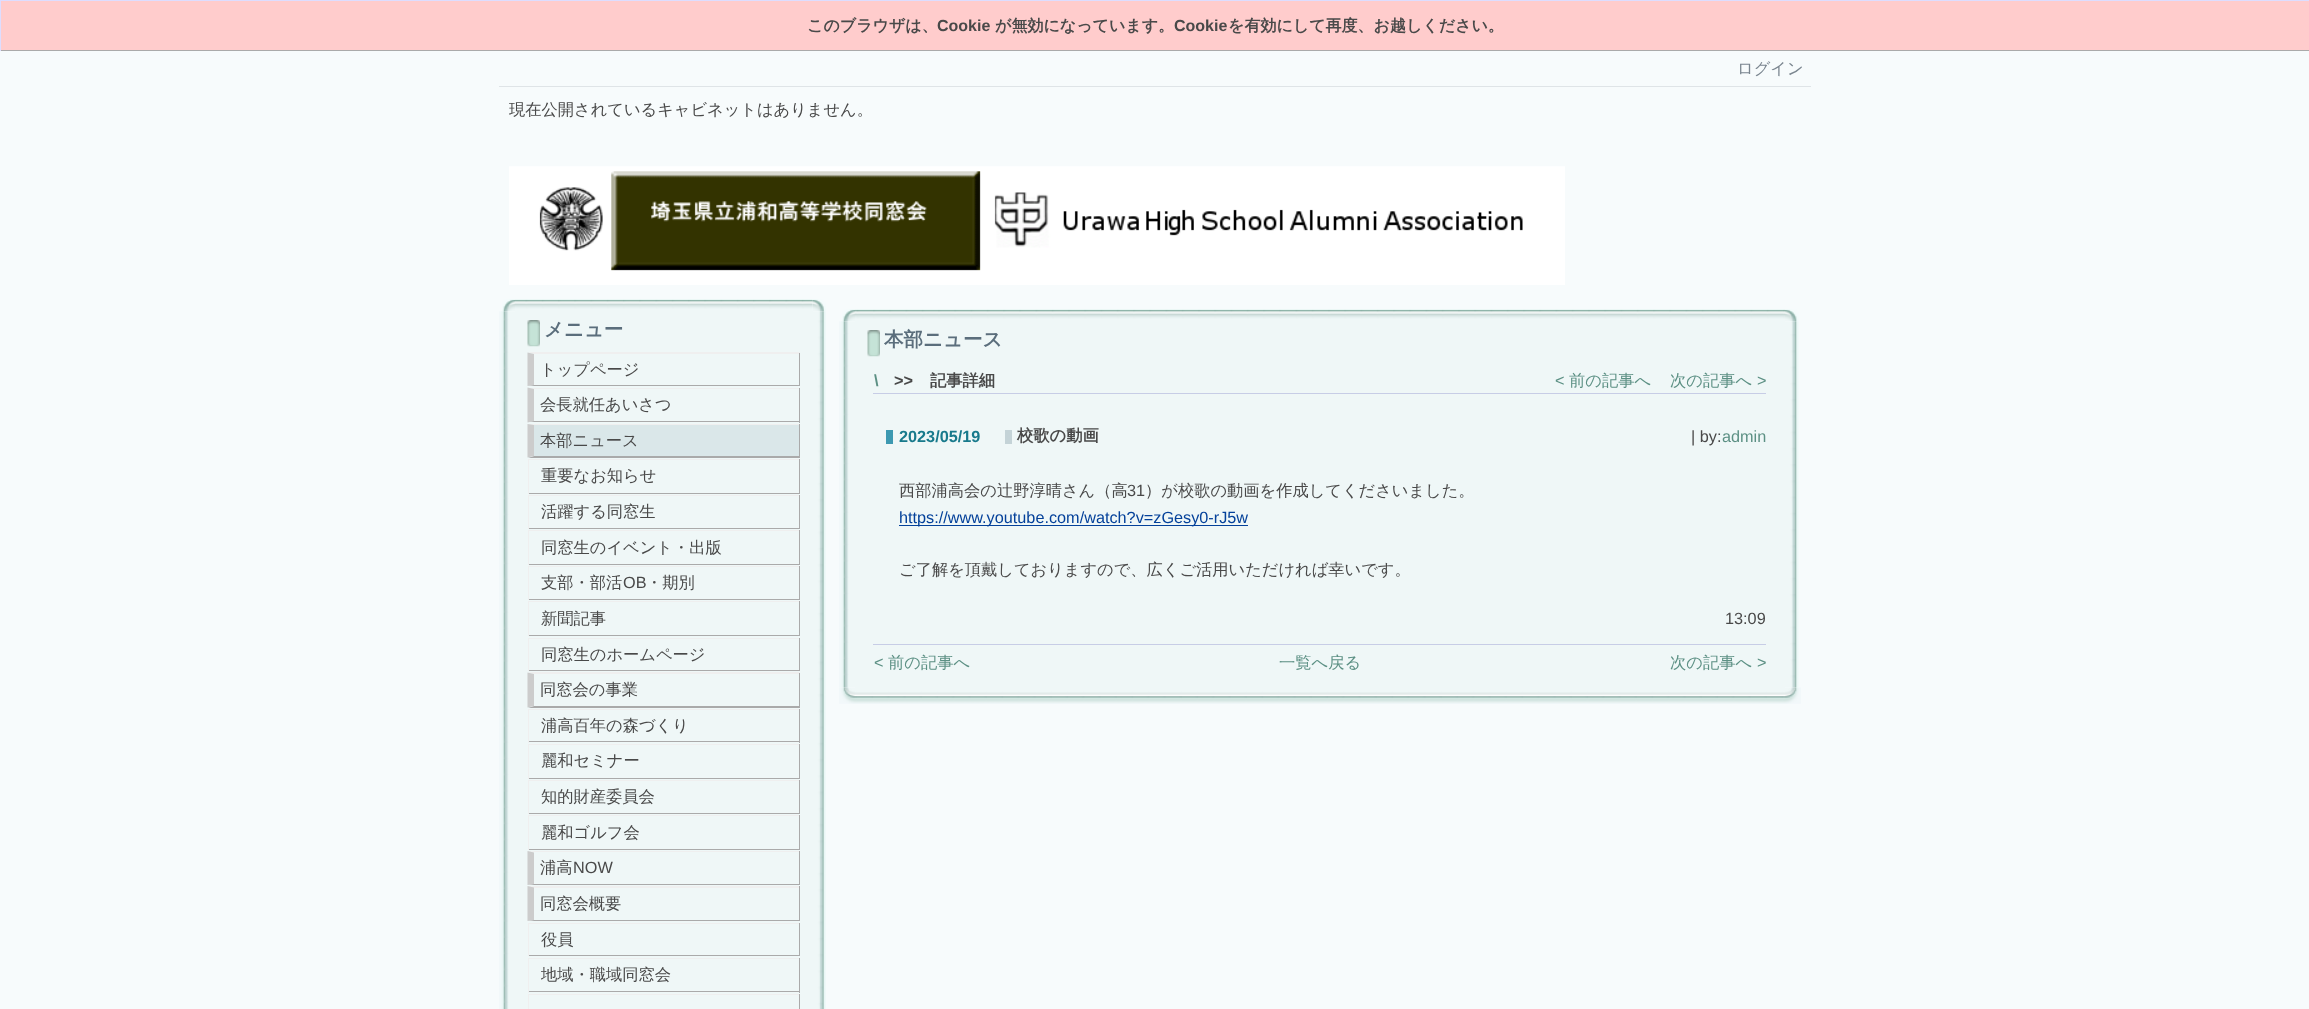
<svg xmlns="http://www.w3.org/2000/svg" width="2309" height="1009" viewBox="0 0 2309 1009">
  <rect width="100%" height="100%" fill="#f7fbfc"/>
  <rect x="1" y="1" width="2308" height="49" fill="#ffcccc"/>
  <rect x="0" y="0" width="2309" height="1" fill="#ddddff"/>
  <rect x="0" y="50" width="2309" height="1" fill="#aaaaaa"/>
  <rect x="0" y="0" width="1" height="51" fill="#ddddff"/>
  <text x="807" y="31" font-family="WenQuanYi Zen Hei" font-size="16" font-weight="bold" fill="#494949">このブラウザは、</text>
  <text x="937" y="31" font-family="Liberation Sans" font-size="16" font-weight="bold" fill="#494949">Cookie</text>
  <text x="995" y="31" font-family="WenQuanYi Zen Hei" font-size="16" font-weight="bold" fill="#494949">が無効になっています。</text>
  <text x="1174" y="31" font-family="Liberation Sans" font-size="16" font-weight="bold" fill="#494949">Cookie</text>
  <text x="1228" y="31" font-family="WenQuanYi Zen Hei" font-size="16" font-weight="bold" fill="#494949">を有効にして再度、お越しください。</text>
  <rect x="499" y="86" width="1312" height="1" fill="#dfe4e7"/>
  <text x="1737" y="74" font-family="WenQuanYi Zen Hei" font-size="16.25" font-weight="500" fill="#7a858f">ログイン</text>
  <text x="509" y="115" font-family="WenQuanYi Zen Hei" font-size="16.25" font-weight="500" fill="#494949">現在公開されているキャビネットはありません。</text>
  <image x="509" y="166" width="1056" height="119" href="img1.png"/>
  <image x="502" y="299" width="13" height="13" href="img2.png"/>
  <image x="515" y="299" width="298" height="12" href="img3.png"/>
  <image x="812" y="299" width="14" height="13" href="img4.png"/>
  <image x="812" y="300" width="1" height="2" href="img5.png"/>
  <image x="499" y="311" width="16" height="698" href="img6.png"/>
  <rect x="515" y="311" width="298" height="698" fill="#eff7f7"/>
  <image x="527" y="320" width="13" height="27" href="img7.png"/>
  <text x="544" y="336" font-family="WenQuanYi Zen Hei" font-size="19.5" font-weight="bold" fill="#5b6e7c">メニュー</text>
  <path d="M528 352H800L799 354H534Z" fill="#efefef"/>
  <rect x="799" y="353" width="1" height="33" fill="#aaaaaa"/>
  <path d="M800 386H528L534 385H799Z" fill="#aaaaaa"/>
  <path d="M527.5 386V352.5L534 354V385Z" fill="#cccccc"/>
  <text x="540" y="375" font-family="WenQuanYi Zen Hei" font-size="16.25" font-weight="500" fill="#494949">トップページ</text>
  <path d="M528 388H800L799 389H534Z" fill="#efefef"/>
  <rect x="799" y="388" width="1" height="35" fill="#aaaaaa"/>
  <path d="M800 422H528L534 421H799Z" fill="#aaaaaa"/>
  <path d="M527.5 422.5V387.5L534 389V421Z" fill="#cccccc"/>
  <text x="540" y="410" font-family="WenQuanYi Zen Hei" font-size="16.25" font-weight="500" fill="#494949">会長就任あいさつ</text>
  <rect x="534" y="425" width="265" height="31" fill="#dae7e9"/>
  <path d="M528 424H800L799 425H534Z" fill="#efefef"/>
  <rect x="799" y="424" width="1" height="34" fill="#aaaaaa"/>
  <path d="M800 458H528L534 456H799Z" fill="#aaaaaa"/>
  <path d="M527.5 457.5V424L534 425V456Z" fill="#cccccc"/>
  <text x="540" y="446" font-family="WenQuanYi Zen Hei" font-size="16.25" font-weight="500" fill="#494949">本部ニュース</text>
  <rect x="528" y="459" width="272" height="1" fill="#efefef"/>
  <rect x="799" y="459" width="1" height="35" fill="#aaaaaa"/>
  <rect x="528" y="493" width="272" height="1" fill="#aaaaaa"/>
  <rect x="528" y="459" width="1" height="35" fill="#efefef"/>
  <text x="541" y="481" font-family="WenQuanYi Zen Hei" font-size="16.25" font-weight="500" fill="#494949">重要なお知らせ</text>
  <rect x="528" y="495" width="272" height="1" fill="#efefef"/>
  <rect x="799" y="495" width="1" height="34" fill="#aaaaaa"/>
  <rect x="528" y="528" width="272" height="1" fill="#aaaaaa"/>
  <rect x="528" y="495" width="1" height="34" fill="#efefef"/>
  <text x="541" y="517" font-family="WenQuanYi Zen Hei" font-size="16.25" font-weight="500" fill="#494949">活躍する同窓生</text>
  <rect x="528" y="530" width="272" height="1" fill="#efefef"/>
  <rect x="799" y="530" width="1" height="35" fill="#aaaaaa"/>
  <rect x="528" y="564" width="272" height="1" fill="#aaaaaa"/>
  <rect x="528" y="530" width="1" height="35" fill="#efefef"/>
  <text x="541" y="553" font-family="WenQuanYi Zen Hei" font-size="16.25" font-weight="500" fill="#494949">同窓生のイベント・出版</text>
  <rect x="528" y="566" width="272" height="1" fill="#efefef"/>
  <rect x="799" y="566" width="1" height="34" fill="#aaaaaa"/>
  <rect x="528" y="599" width="272" height="1" fill="#aaaaaa"/>
  <rect x="528" y="566" width="1" height="34" fill="#efefef"/>
  <text x="541" y="588" font-family="WenQuanYi Zen Hei" font-size="16.25" font-weight="500" fill="#494949">支部・部活</text>
  <text x="623" y="588" font-family="Liberation Sans" font-size="16.25" fill="#494949">OB</text>
  <text x="646" y="588" font-family="WenQuanYi Zen Hei" font-size="16.25" font-weight="500" fill="#494949">・期別</text>
  <rect x="528" y="601" width="272" height="1" fill="#efefef"/>
  <rect x="799" y="601" width="1" height="35" fill="#aaaaaa"/>
  <rect x="528" y="635" width="272" height="1" fill="#aaaaaa"/>
  <rect x="528" y="601" width="1" height="35" fill="#efefef"/>
  <text x="541" y="624" font-family="WenQuanYi Zen Hei" font-size="16.25" font-weight="500" fill="#494949">新聞記事</text>
  <rect x="528" y="638" width="272" height="1" fill="#efefef"/>
  <rect x="799" y="638" width="1" height="33" fill="#aaaaaa"/>
  <rect x="528" y="670" width="272" height="1" fill="#aaaaaa"/>
  <rect x="528" y="638" width="1" height="33" fill="#efefef"/>
  <text x="541" y="660" font-family="WenQuanYi Zen Hei" font-size="16.25" font-weight="500" fill="#494949">同窓生のホームページ</text>
  <path d="M528 672H800L799 674H534Z" fill="#efefef"/>
  <rect x="799" y="673" width="1" height="35" fill="#aaaaaa"/>
  <path d="M800 708H528L534 706H799Z" fill="#aaaaaa"/>
  <path d="M527.5 707.5V672.5L534 674V706Z" fill="#cccccc"/>
  <text x="540" y="695" font-family="WenQuanYi Zen Hei" font-size="16.25" font-weight="500" fill="#494949">同窓会の事業</text>
  <rect x="528" y="709" width="272" height="1" fill="#efefef"/>
  <rect x="799" y="709" width="1" height="34" fill="#aaaaaa"/>
  <rect x="528" y="741" width="272" height="1" fill="#aaaaaa"/>
  <rect x="528" y="709" width="1" height="34" fill="#efefef"/>
  <text x="541" y="731" font-family="WenQuanYi Zen Hei" font-size="16.25" font-weight="500" fill="#494949">浦高百年の森づくり</text>
  <rect x="528" y="744" width="272" height="1" fill="#efefef"/>
  <rect x="799" y="744" width="1" height="35" fill="#aaaaaa"/>
  <rect x="528" y="778" width="272" height="1" fill="#aaaaaa"/>
  <rect x="528" y="744" width="1" height="35" fill="#efefef"/>
  <text x="541" y="766" font-family="WenQuanYi Zen Hei" font-size="16.25" font-weight="500" fill="#494949">麗和セミナー</text>
  <rect x="528" y="780" width="272" height="1" fill="#efefef"/>
  <rect x="799" y="780" width="1" height="34" fill="#aaaaaa"/>
  <rect x="528" y="813" width="272" height="1" fill="#aaaaaa"/>
  <rect x="528" y="780" width="1" height="34" fill="#efefef"/>
  <text x="541" y="802" font-family="WenQuanYi Zen Hei" font-size="16.25" font-weight="500" fill="#494949">知的財産委員会</text>
  <rect x="528" y="815" width="272" height="1" fill="#efefef"/>
  <rect x="799" y="815" width="1" height="35" fill="#aaaaaa"/>
  <rect x="528" y="849" width="272" height="1" fill="#aaaaaa"/>
  <rect x="528" y="815" width="1" height="35" fill="#efefef"/>
  <text x="541" y="838" font-family="WenQuanYi Zen Hei" font-size="16.25" font-weight="500" fill="#494949">麗和ゴルフ会</text>
  <path d="M528 851H800L799 852H534Z" fill="#efefef"/>
  <rect x="799" y="851" width="1" height="34" fill="#aaaaaa"/>
  <path d="M800 885H528L534 884H799Z" fill="#aaaaaa"/>
  <path d="M527.5 885V851L534 852.5V884Z" fill="#cccccc"/>
  <text x="540" y="873" font-family="WenQuanYi Zen Hei" font-size="16.25" font-weight="500" fill="#494949">浦高</text>
  <text x="573" y="873" font-family="Liberation Sans" font-size="16.25" fill="#494949">NOW</text>
  <path d="M528 886H800L799 888H534Z" fill="#efefef"/>
  <rect x="799" y="886" width="1" height="35" fill="#aaaaaa"/>
  <path d="M800 921H528L534 920H799Z" fill="#aaaaaa"/>
  <path d="M527.5 921V886L534 887.5V920Z" fill="#cccccc"/>
  <text x="540" y="909" font-family="WenQuanYi Zen Hei" font-size="16.25" font-weight="500" fill="#494949">同窓会概要</text>
  <rect x="528" y="923" width="272" height="1" fill="#efefef"/>
  <rect x="799" y="923" width="1" height="33" fill="#aaaaaa"/>
  <rect x="528" y="955" width="272" height="1" fill="#aaaaaa"/>
  <rect x="528" y="923" width="1" height="33" fill="#efefef"/>
  <text x="541" y="945" font-family="WenQuanYi Zen Hei" font-size="16.25" font-weight="500" fill="#494949">役員</text>
  <rect x="528" y="958" width="272" height="1" fill="#efefef"/>
  <rect x="799" y="958" width="1" height="35" fill="#aaaaaa"/>
  <rect x="528" y="991" width="272" height="1" fill="#aaaaaa"/>
  <rect x="528" y="958" width="1" height="35" fill="#efefef"/>
  <text x="541" y="980" font-family="WenQuanYi Zen Hei" font-size="16.25" font-weight="500" fill="#494949">地域・職域同窓会</text>
  <rect x="528" y="994" width="272" height="1" fill="#efefef"/>
  <rect x="799" y="994" width="1" height="15" fill="#aaaaaa"/>
  <rect x="528" y="994" width="1" height="15" fill="#efefef"/>
  <image x="813" y="311" width="13" height="698" href="img8.png"/>
  <image x="842" y="309" width="13" height="13" href="img9.png"/>
  <image x="855" y="309" width="930" height="12" href="img10.png"/>
  <image x="1785" y="309" width="14" height="13" href="img11.png"/>
  <image x="839" y="321" width="16" height="367" href="img12.png"/>
  <rect x="855" y="321" width="930" height="367" fill="#eff7f7"/>
  <image x="867" y="330" width="13" height="27" href="img13.png"/>
  <text x="884" y="346" font-family="WenQuanYi Zen Hei" font-size="19.5" font-weight="bold" fill="#5b6e7c">本部ニュース</text>
  <text x="874" y="386" font-family="Liberation Sans" font-size="16.25" font-weight="bold" fill="#5c9084">\</text>
  <text x="894" y="386" font-family="Liberation Sans" font-size="16.25" font-weight="bold" fill="#494949">&gt;&gt;</text>
  <text x="930" y="386" font-family="WenQuanYi Zen Hei" font-size="16.25" font-weight="bold" fill="#494949">記事詳細</text>
  <text x="1555" y="386" font-family="Liberation Sans" font-size="16.25" fill="#5c9084">&lt;</text>
  <text x="1569" y="386" font-family="WenQuanYi Zen Hei" font-size="16.25" font-weight="500" fill="#5c9084">前の記事へ</text>
  <text x="1670" y="386" font-family="WenQuanYi Zen Hei" font-size="16.25" font-weight="500" fill="#5c9084">次の記事へ</text>
  <text x="1757" y="386" font-family="Liberation Sans" font-size="16.25" fill="#5c9084">&gt;</text>
  <rect x="886" y="430" width="7" height="14" fill="#3d99b1"/>
  <text x="899" y="442" font-family="Liberation Sans" font-size="16.25" font-weight="bold" fill="#187a8c">2023/05/19</text>
  <rect x="1005" y="430" width="7" height="14" fill="#c4d3d7"/>
  <text x="1017" y="441" font-family="WenQuanYi Zen Hei" font-size="16.25" font-weight="bold" fill="#494949">校歌の動画</text>
  <rect x="873" y="393" width="893" height="1" fill="#c7cde6"/>
  <text x="1691" y="442" font-family="Liberation Sans" font-size="16.25" fill="#494949">| by:</text>
  <text x="1722" y="442" font-family="Liberation Sans" font-size="16.25" fill="#5c9084">admin</text>
  <text x="899" y="496" font-family="WenQuanYi Zen Hei" font-size="16.25" font-weight="500" fill="#494949">西部浦高会の辻野淳晴さん（高</text>
  <text x="1127" y="496" font-family="Liberation Sans" font-size="16.25" fill="#494949">31</text>
  <text x="1145" y="496" font-family="WenQuanYi Zen Hei" font-size="16.25" font-weight="500" fill="#494949">）が校歌の動画を作成してくださいました。</text>
  <rect x="899" y="525" width="349" height="1" fill="#04419a"/>
  <text x="899" y="523" font-family="Liberation Sans" font-size="16.25" fill="#04419a">https://www.youtube.com/watch?v=zGesy0-rJ5w</text>
  <text x="899" y="575" font-family="WenQuanYi Zen Hei" font-size="16.25" font-weight="500" fill="#494949">ご了解を頂戴しておりますので、広くご活用いただければ幸いです。</text>
  <rect x="873" y="644" width="893" height="1" fill="#c7cde6"/>
  <text x="1725" y="624" font-family="Liberation Sans" font-size="16.25" fill="#494949">13:09</text>
  <text x="874" y="668" font-family="Liberation Sans" font-size="16.25" fill="#5c9084">&lt;</text>
  <text x="888" y="668" font-family="WenQuanYi Zen Hei" font-size="16.25" font-weight="500" fill="#5c9084">前の記事へ</text>
  <text x="1279" y="668" font-family="WenQuanYi Zen Hei" font-size="16.25" font-weight="500" fill="#5c9084">一覧へ戻る</text>
  <text x="1670" y="668" font-family="WenQuanYi Zen Hei" font-size="16.25" font-weight="500" fill="#5c9084">次の記事へ</text>
  <text x="1757" y="668" font-family="Liberation Sans" font-size="16.25" fill="#5c9084">&gt;</text>
  <image x="1785" y="321" width="14" height="367" href="img14.png"/>
  <image x="839" y="687" width="16" height="17" href="img15.png"/>
  <image x="855" y="688" width="930" height="16" href="img16.png"/>
  <image x="1785" y="687" width="16" height="17" href="img17.png"/>
</svg>
